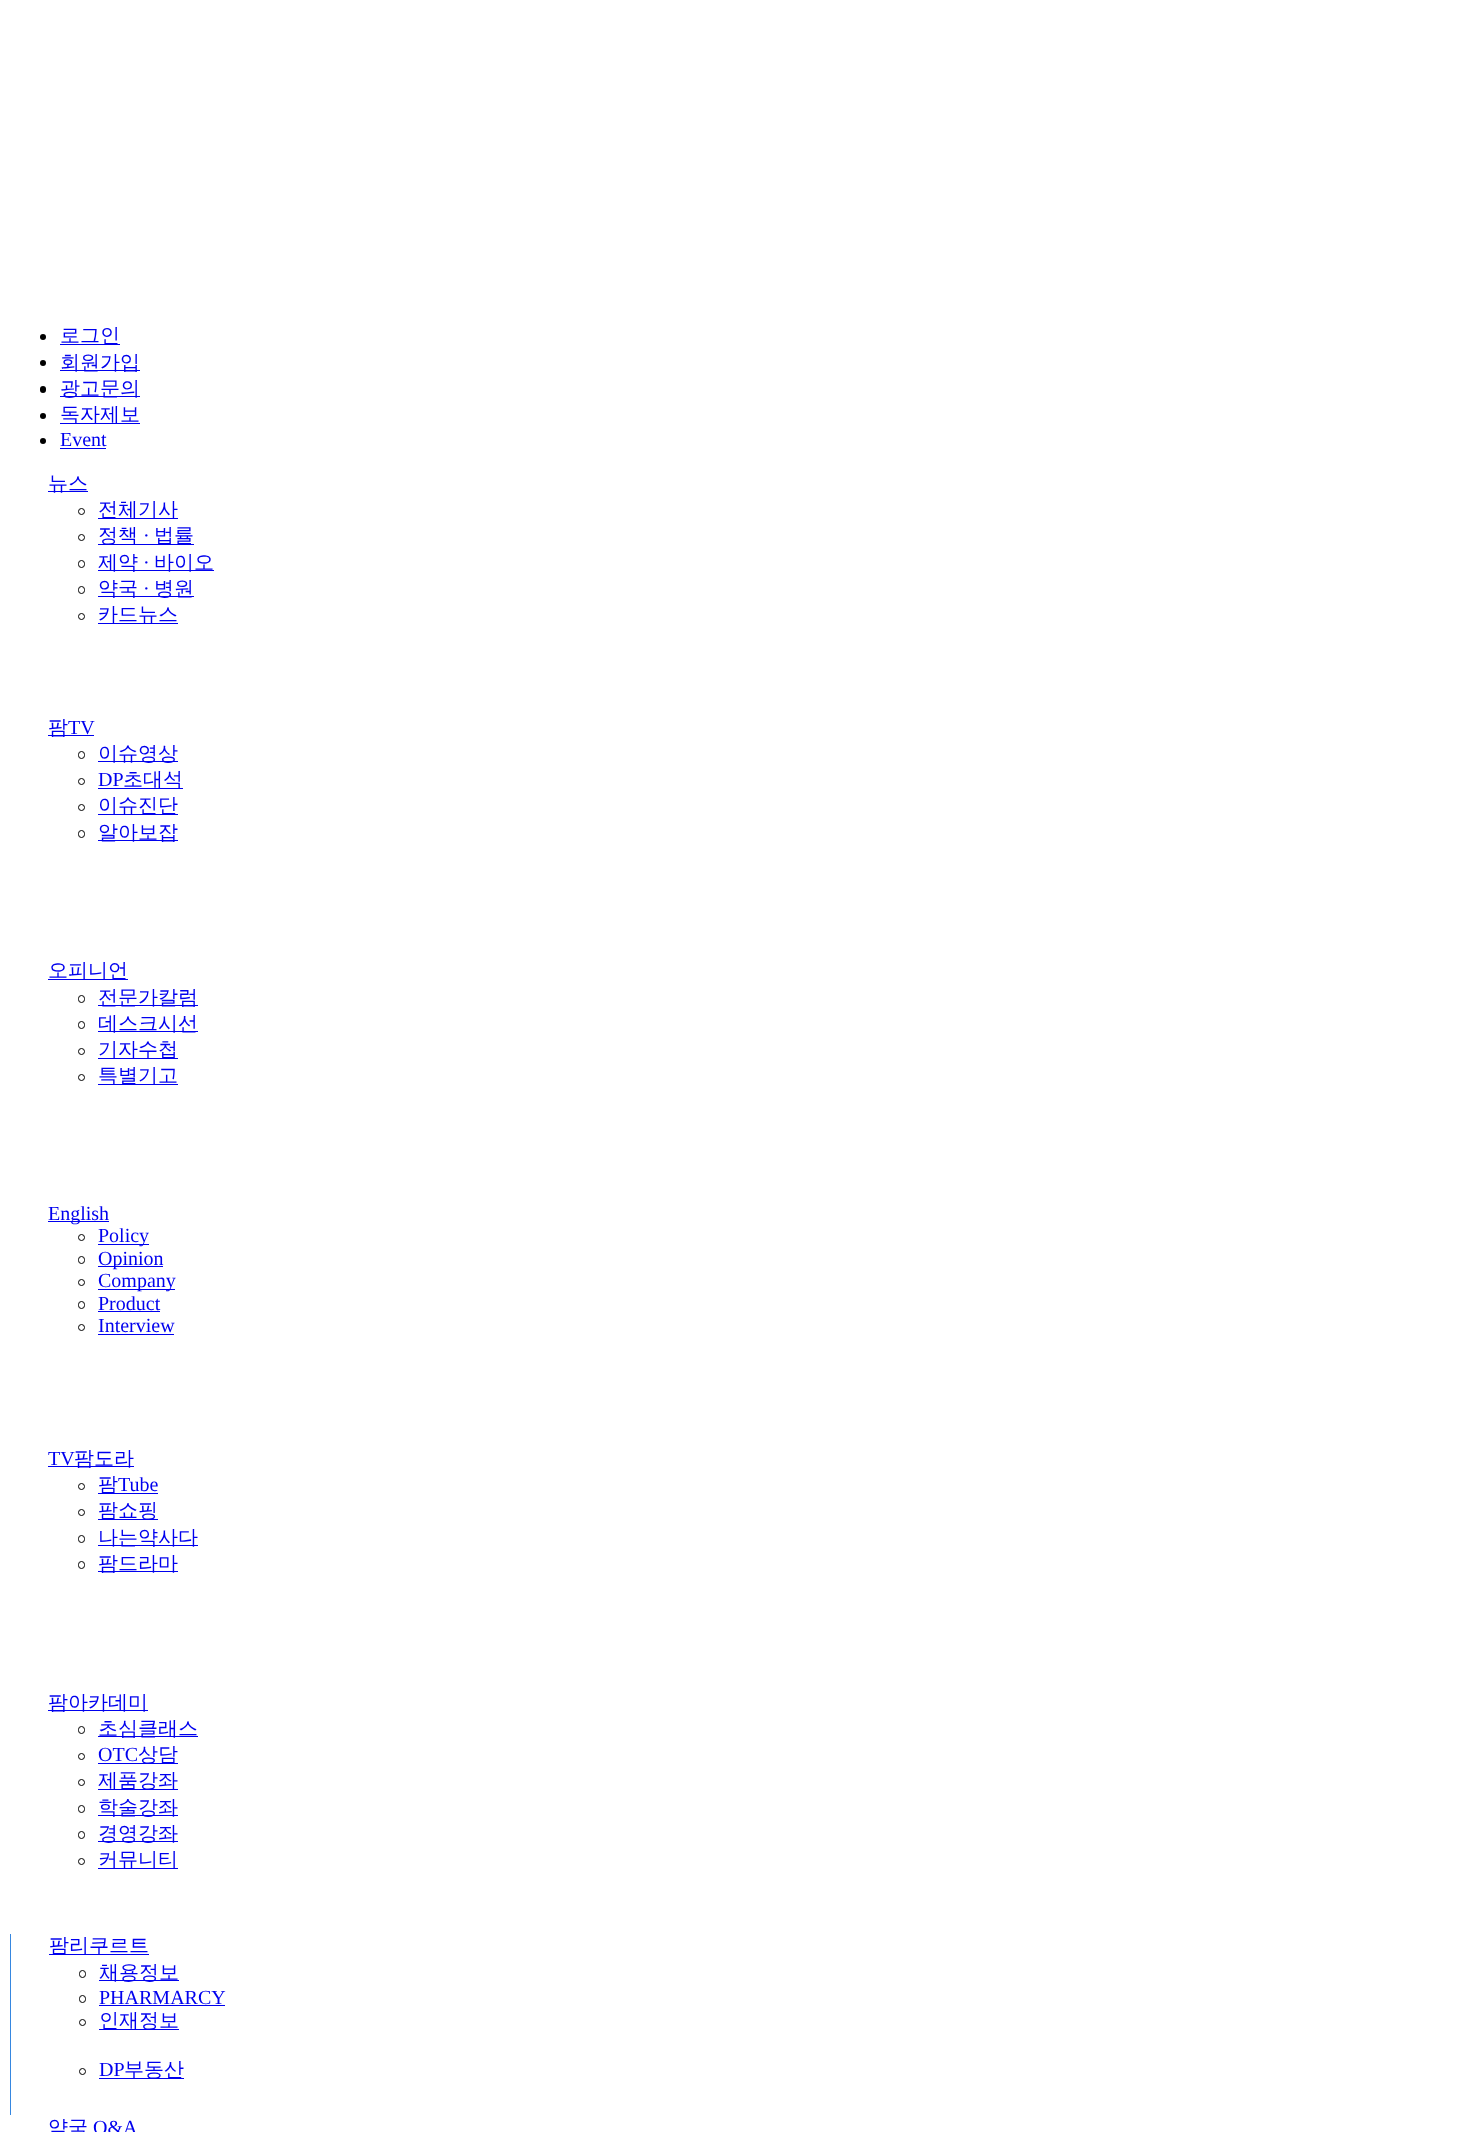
<svg xmlns="http://www.w3.org/2000/svg" width="1471" height="2132" viewBox="0 0 1471 2132">
  <rect width="100%" height="100%" fill="#ffffff"/>
  <circle cx="43" cy="337" r="3" fill="#000000"/>
  <rect x="60" y="344" width="60" height="1" fill="#0000ee"/>
  <text x="60" y="342" font-family="WenQuanYi Zen Hei" font-size="20" font-weight="500" fill="#0000ee">로그인</text>
  <circle cx="43" cy="363" r="3" fill="#000000"/>
  <rect x="60" y="370" width="80" height="1" fill="#0000ee"/>
  <text x="60" y="369" font-family="WenQuanYi Zen Hei" font-size="20" font-weight="500" fill="#0000ee">회원가입</text>
  <rect x="40" y="386" width="6" height="7" rx="3" fill="#000000"/>
  <rect x="60" y="396" width="80" height="1" fill="#0000ee"/>
  <text x="60" y="395" font-family="WenQuanYi Zen Hei" font-size="20" font-weight="500" fill="#0000ee">광고문의</text>
  <circle cx="43" cy="416" r="3" fill="#000000"/>
  <rect x="60" y="423" width="80" height="1" fill="#0000ee"/>
  <text x="60" y="421" font-family="WenQuanYi Zen Hei" font-size="20" font-weight="500" fill="#0000ee">독자제보</text>
  <circle cx="43" cy="441" r="3" fill="#000000"/>
  <text x="60" y="446" font-family="Liberation Serif" font-size="20" fill="#0000ee">Event</text>
  <rect x="60" y="448" width="46" height="1" fill="#0000ee"/>
  <rect x="48" y="491" width="40" height="1" fill="#0000ee"/>
  <text x="48" y="490" font-family="WenQuanYi Zen Hei" font-size="20" font-weight="500" fill="#0000ee">뉴스</text>
  <circle cx="81.5" cy="511.5" r="3" fill="none" stroke="#000000"/>
  <rect x="98" y="518" width="80" height="1" fill="#0000ee"/>
  <text x="98" y="516" font-family="WenQuanYi Zen Hei" font-size="20" font-weight="500" fill="#0000ee">전체기사</text>
  <circle cx="81.5" cy="537.5" r="3" fill="none" stroke="#000000"/>
  <rect x="98" y="544" width="96" height="1" fill="#0000ee"/>
  <text x="98" y="542" font-family="WenQuanYi Zen Hei" font-size="20" font-weight="500" fill="#0000ee">정책</text>
  <text x="143" y="542" font-family="Liberation Serif" font-size="20" fill="#0000ee">·</text>
  <text x="154" y="542" font-family="WenQuanYi Zen Hei" font-size="20" font-weight="500" fill="#0000ee">법률</text>
  <rect x="78.5" y="560.5" width="6" height="7" rx="3" fill="none" stroke="#000000"/>
  <rect x="98" y="570" width="116" height="1" fill="#0000ee"/>
  <text x="98" y="569" font-family="WenQuanYi Zen Hei" font-size="20" font-weight="500" fill="#0000ee">제약</text>
  <text x="143" y="569" font-family="Liberation Serif" font-size="20" fill="#0000ee">·</text>
  <text x="154" y="569" font-family="WenQuanYi Zen Hei" font-size="20" font-weight="500" fill="#0000ee">바이오</text>
  <rect x="78.5" y="586.5" width="6" height="7" rx="3" fill="none" stroke="#000000"/>
  <rect x="98" y="596" width="96" height="1" fill="#0000ee"/>
  <text x="98" y="595" font-family="WenQuanYi Zen Hei" font-size="20" font-weight="500" fill="#0000ee">약국</text>
  <text x="143" y="595" font-family="Liberation Serif" font-size="20" fill="#0000ee">·</text>
  <text x="154" y="595" font-family="WenQuanYi Zen Hei" font-size="20" font-weight="500" fill="#0000ee">병원</text>
  <circle cx="81.5" cy="616.5" r="3" fill="none" stroke="#000000"/>
  <rect x="98" y="623" width="80" height="1" fill="#0000ee"/>
  <text x="98" y="621" font-family="WenQuanYi Zen Hei" font-size="20" font-weight="500" fill="#0000ee">카드뉴스</text>
  <rect x="48" y="735" width="46" height="1" fill="#0000ee"/>
  <text x="48" y="734" font-family="WenQuanYi Zen Hei" font-size="20" font-weight="500" fill="#0000ee">팜</text>
  <text x="68" y="734" font-family="Liberation Serif" font-size="20" fill="#0000ee">TV</text>
  <rect x="78.5" y="751.5" width="6" height="7" rx="3" fill="none" stroke="#000000"/>
  <rect x="98" y="761" width="80" height="1" fill="#0000ee"/>
  <text x="98" y="760" font-family="WenQuanYi Zen Hei" font-size="20" font-weight="500" fill="#0000ee">이슈영상</text>
  <circle cx="81.5" cy="781.5" r="3" fill="none" stroke="#000000"/>
  <text x="98" y="786" font-family="Liberation Serif" font-size="20" fill="#0000ee">DP</text>
  <rect x="98" y="788" width="85" height="1" fill="#0000ee"/>
  <text x="123" y="786" font-family="WenQuanYi Zen Hei" font-size="20" font-weight="500" fill="#0000ee">초대석</text>
  <circle cx="81.5" cy="807.5" r="3" fill="none" stroke="#000000"/>
  <rect x="98" y="814" width="80" height="1" fill="#0000ee"/>
  <text x="98" y="812" font-family="WenQuanYi Zen Hei" font-size="20" font-weight="500" fill="#0000ee">이슈진단</text>
  <rect x="78.5" y="830.5" width="6" height="7" rx="3" fill="none" stroke="#000000"/>
  <rect x="98" y="840" width="80" height="1" fill="#0000ee"/>
  <text x="98" y="839" font-family="WenQuanYi Zen Hei" font-size="20" font-weight="500" fill="#0000ee">알아보잡</text>
  <rect x="48" y="979" width="80" height="1" fill="#0000ee"/>
  <text x="48" y="977" font-family="WenQuanYi Zen Hei" font-size="20" font-weight="500" fill="#0000ee">오피니언</text>
  <rect x="78.5" y="995.5" width="6" height="7" rx="3" fill="none" stroke="#000000"/>
  <rect x="98" y="1005" width="100" height="1" fill="#0000ee"/>
  <text x="98" y="1004" font-family="WenQuanYi Zen Hei" font-size="20" font-weight="500" fill="#0000ee">전문가칼럼</text>
  <rect x="78.5" y="1021.5" width="6" height="7" rx="3" fill="none" stroke="#000000"/>
  <rect x="98" y="1031" width="100" height="1" fill="#0000ee"/>
  <text x="98" y="1030" font-family="WenQuanYi Zen Hei" font-size="20" font-weight="500" fill="#0000ee">데스크시선</text>
  <circle cx="81.5" cy="1051.5" r="3" fill="none" stroke="#000000"/>
  <rect x="98" y="1058" width="80" height="1" fill="#0000ee"/>
  <text x="98" y="1056" font-family="WenQuanYi Zen Hei" font-size="20" font-weight="500" fill="#0000ee">기자수첩</text>
  <circle cx="81.5" cy="1077.5" r="3" fill="none" stroke="#000000"/>
  <rect x="98" y="1084" width="80" height="1" fill="#0000ee"/>
  <text x="98" y="1082" font-family="WenQuanYi Zen Hei" font-size="20" font-weight="500" fill="#0000ee">특별기고</text>
  <rect x="48" y="1221" width="61" height="1" fill="#0000ee"/>
  <text x="48" y="1220" font-family="Liberation Serif" font-size="20" fill="#0000ee">English</text>
  <circle cx="81.5" cy="1237.5" r="3" fill="none" stroke="#000000"/>
  <rect x="98" y="1244" width="51" height="1" fill="#0000ee"/>
  <text x="98" y="1242" font-family="Liberation Serif" font-size="20" fill="#0000ee">Policy</text>
  <rect x="78.5" y="1256.5" width="6" height="7" rx="3" fill="none" stroke="#000000"/>
  <rect x="98" y="1266" width="65" height="1" fill="#0000ee"/>
  <text x="98" y="1265" font-family="Liberation Serif" font-size="20" fill="#0000ee">Opinion</text>
  <circle cx="81.5" cy="1282.5" r="3" fill="none" stroke="#000000"/>
  <rect x="98" y="1289" width="77" height="1" fill="#0000ee"/>
  <text x="98" y="1287" font-family="Liberation Serif" font-size="20" fill="#0000ee">Company</text>
  <rect x="78.5" y="1301.5" width="6" height="7" rx="3" fill="none" stroke="#000000"/>
  <text x="98" y="1310" font-family="Liberation Serif" font-size="20" fill="#0000ee">Product</text>
  <rect x="98" y="1311" width="62" height="1" fill="#0000ee"/>
  <circle cx="81.5" cy="1327.5" r="3" fill="none" stroke="#000000"/>
  <text x="98" y="1332" font-family="Liberation Serif" font-size="20" fill="#0000ee">Interview</text>
  <rect x="98" y="1334" width="76" height="1" fill="#0000ee"/>
  <text x="48" y="1465" font-family="Liberation Serif" font-size="20" fill="#0000ee">TV</text>
  <rect x="48" y="1466" width="86" height="1" fill="#0000ee"/>
  <text x="74" y="1465" font-family="WenQuanYi Zen Hei" font-size="20" font-weight="500" fill="#0000ee">팜도라</text>
  <circle cx="81.5" cy="1486.5" r="3" fill="none" stroke="#000000"/>
  <rect x="98" y="1493" width="60" height="1" fill="#0000ee"/>
  <text x="98" y="1491" font-family="WenQuanYi Zen Hei" font-size="20" font-weight="500" fill="#0000ee">팜</text>
  <text x="118" y="1491" font-family="Liberation Serif" font-size="20" fill="#0000ee">Tube</text>
  <circle cx="81.5" cy="1512.5" r="3" fill="none" stroke="#000000"/>
  <rect x="98" y="1519" width="60" height="1" fill="#0000ee"/>
  <text x="98" y="1517" font-family="WenQuanYi Zen Hei" font-size="20" font-weight="500" fill="#0000ee">팜쇼핑</text>
  <rect x="78.5" y="1535.5" width="6" height="7" rx="3" fill="none" stroke="#000000"/>
  <rect x="98" y="1545" width="100" height="1" fill="#0000ee"/>
  <text x="98" y="1544" font-family="WenQuanYi Zen Hei" font-size="20" font-weight="500" fill="#0000ee">나는약사다</text>
  <rect x="78.5" y="1561.5" width="6" height="7" rx="3" fill="none" stroke="#000000"/>
  <rect x="98" y="1571" width="80" height="1" fill="#0000ee"/>
  <text x="98" y="1570" font-family="WenQuanYi Zen Hei" font-size="20" font-weight="500" fill="#0000ee">팜드라마</text>
  <rect x="48" y="1710" width="100" height="1" fill="#0000ee"/>
  <text x="48" y="1709" font-family="WenQuanYi Zen Hei" font-size="20" font-weight="500" fill="#0000ee">팜아카데미</text>
  <rect x="78.5" y="1726.5" width="6" height="7" rx="3" fill="none" stroke="#000000"/>
  <rect x="98" y="1736" width="100" height="1" fill="#0000ee"/>
  <text x="98" y="1735" font-family="WenQuanYi Zen Hei" font-size="20" font-weight="500" fill="#0000ee">초심클래스</text>
  <circle cx="81.5" cy="1756.5" r="3" fill="none" stroke="#000000"/>
  <text x="98" y="1761" font-family="Liberation Serif" font-size="20" fill="#0000ee">OTC</text>
  <rect x="98" y="1763" width="80" height="1" fill="#0000ee"/>
  <text x="138" y="1761" font-family="WenQuanYi Zen Hei" font-size="20" font-weight="500" fill="#0000ee">상담</text>
  <circle cx="81.5" cy="1782.5" r="3" fill="none" stroke="#000000"/>
  <rect x="98" y="1789" width="80" height="1" fill="#0000ee"/>
  <text x="98" y="1787" font-family="WenQuanYi Zen Hei" font-size="20" font-weight="500" fill="#0000ee">제품강좌</text>
  <rect x="78.5" y="1805.5" width="6" height="7" rx="3" fill="none" stroke="#000000"/>
  <rect x="98" y="1815" width="80" height="1" fill="#0000ee"/>
  <text x="98" y="1814" font-family="WenQuanYi Zen Hei" font-size="20" font-weight="500" fill="#0000ee">학술강좌</text>
  <rect x="78.5" y="1831.5" width="6" height="7" rx="3" fill="none" stroke="#000000"/>
  <rect x="98" y="1841" width="80" height="1" fill="#0000ee"/>
  <text x="98" y="1840" font-family="WenQuanYi Zen Hei" font-size="20" font-weight="500" fill="#0000ee">경영강좌</text>
  <circle cx="81.5" cy="1861.5" r="3" fill="none" stroke="#000000"/>
  <rect x="98" y="1868" width="80" height="1" fill="#0000ee"/>
  <text x="98" y="1866" font-family="WenQuanYi Zen Hei" font-size="20" font-weight="500" fill="#0000ee">커뮤니티</text>
  <rect x="10" y="1934" width="1" height="181" fill="#3687e0"/>
  <rect x="49" y="1954" width="100" height="1" fill="#0000ee"/>
  <text x="49" y="1952" font-family="WenQuanYi Zen Hei" font-size="20" font-weight="500" fill="#0000ee">팜리쿠르트</text>
  <rect x="79.5" y="1970.5" width="6" height="7" rx="3" fill="none" stroke="#000000"/>
  <rect x="99" y="1980" width="80" height="1" fill="#0000ee"/>
  <text x="99" y="1979" font-family="WenQuanYi Zen Hei" font-size="20" font-weight="500" fill="#0000ee">채용정보</text>
  <rect x="79.5" y="1995.5" width="6" height="7" rx="3" fill="none" stroke="#000000"/>
  <text x="99" y="2004" font-family="Liberation Serif" font-size="20" fill="#0000ee">PHARMARCY</text>
  <rect x="99" y="2005" width="126" height="1" fill="#0000ee"/>
  <circle cx="82.5" cy="2022.5" r="3" fill="none" stroke="#000000"/>
  <rect x="99" y="2029" width="80" height="1" fill="#0000ee"/>
  <text x="99" y="2027" font-family="WenQuanYi Zen Hei" font-size="20" font-weight="500" fill="#0000ee">인재정보</text>
  <circle cx="82.5" cy="2071.5" r="3" fill="none" stroke="#000000"/>
  <text x="99" y="2076" font-family="Liberation Serif" font-size="20" fill="#0000ee">DP</text>
  <rect x="99" y="2078" width="85" height="1" fill="#0000ee"/>
  <text x="124" y="2076" font-family="WenQuanYi Zen Hei" font-size="20" font-weight="500" fill="#0000ee">부동산</text>
  <text x="48" y="2134" font-family="WenQuanYi Zen Hei" font-size="20" font-weight="500" fill="#0000ee">약국</text>
  <text x="93" y="2134" font-family="Liberation Serif" font-size="20" fill="#0000ee">Q&amp;A</text>
</svg>
